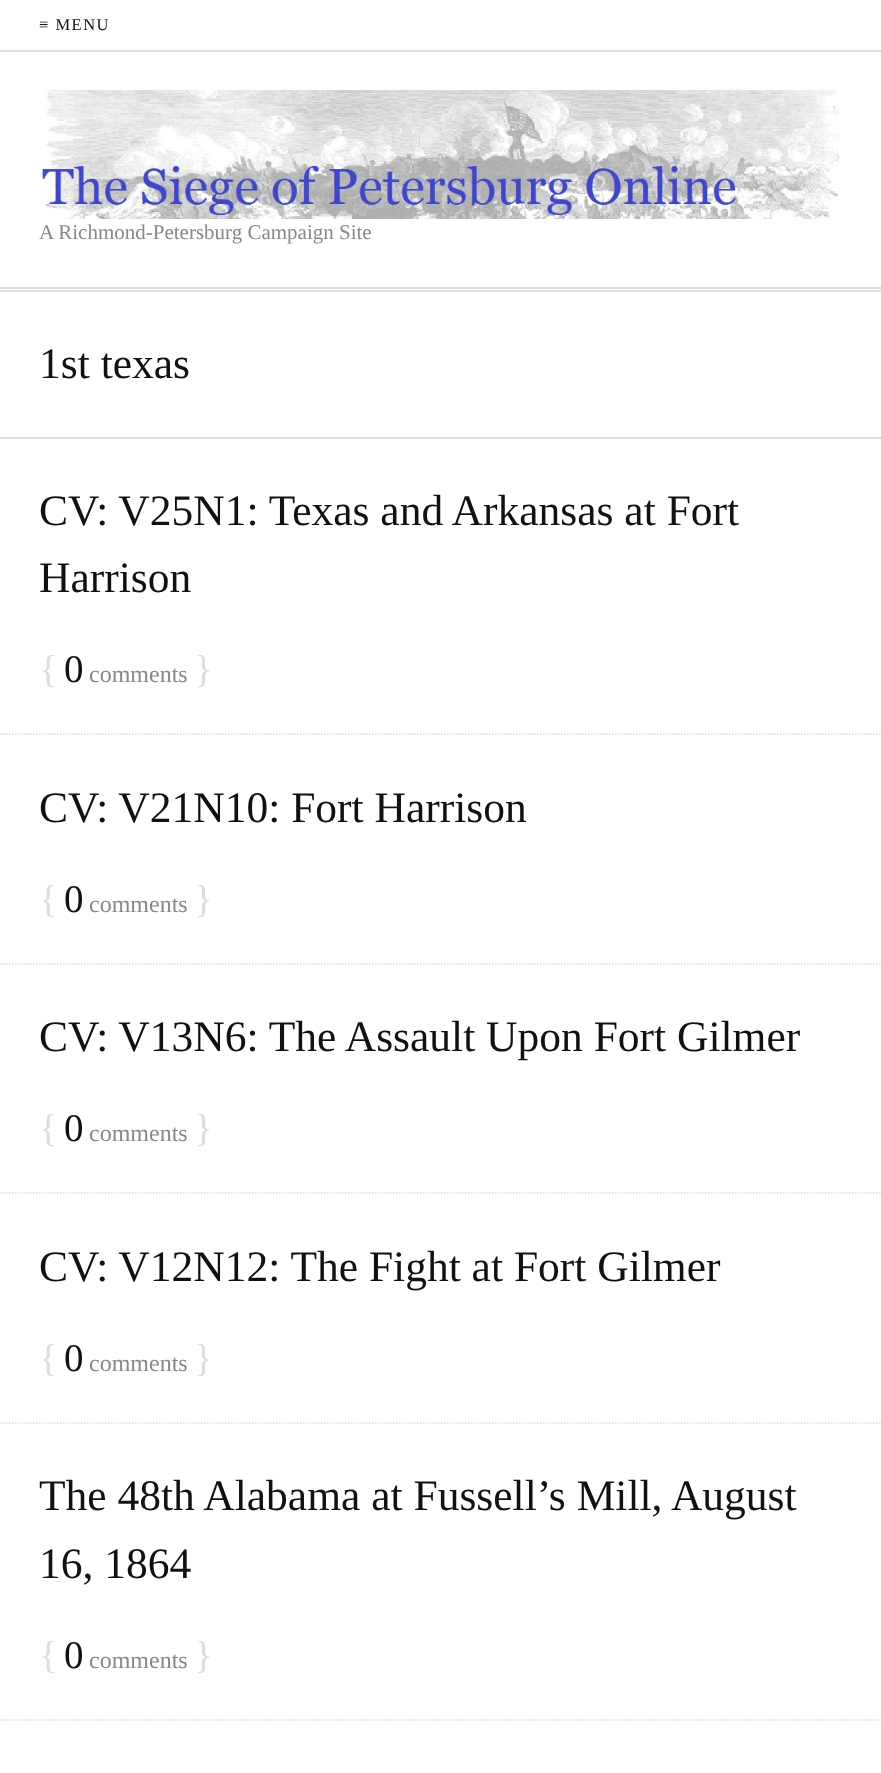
<svg xmlns="http://www.w3.org/2000/svg" width="881" height="1773" viewBox="0 0 881 1773">
  <rect width="100%" height="100%" fill="#ffffff"/>
  <text x="39" y="30" font-family="Liberation Serif" font-size="16.5" letter-spacing="1.5" fill="#111111">≡ MENU</text>
  <rect x="0" y="50" width="881" height="2" fill="#dddddd"/>
  <rect x="0" y="287" width="881" height="2" fill="#dddddd"/>
  <rect x="0" y="290" width="881" height="2" fill="#dddddd"/>
  <image x="39" y="90" width="802" height="129" href="img1.png"/>
  <text x="39" y="239" font-family="Liberation Serif" font-size="21" fill="#888888">A Richmond-Petersburg Campaign Site</text>
  <rect x="0" y="437" width="881" height="2" fill="#dddddd"/>
  <text x="39" y="378" font-family="Liberation Serif" font-size="43.5" fill="#111111">1st texas</text>
  <text x="39" y="525" font-family="Liberation Serif" font-size="43.5" fill="#111111">CV: V25N1: Texas and Arkansas at Fort</text>
  <text x="39" y="592" font-family="Liberation Serif" font-size="43.5" fill="#111111">Harrison</text>
  <text x="39" y="682" font-family="Liberation Serif" font-size="39" fill="#dddddd">{</text>
  <text x="64" y="682" font-family="Liberation Serif" font-size="39" fill="#111111">0</text>
  <text x="89" y="682" font-family="Liberation Serif" font-size="24" fill="#888888">comments</text>
  <text x="194" y="682" font-family="Liberation Serif" font-size="39" fill="#dddddd">}</text>
  <path d="M0 734H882" fill="none" stroke="#dddddd" stroke-width="1.5" stroke-dasharray="1.5 1.5"/>
  <text x="39" y="822" font-family="Liberation Serif" font-size="43.5" fill="#111111">CV: V21N10: Fort Harrison</text>
  <text x="39" y="912" font-family="Liberation Serif" font-size="39" fill="#dddddd">{</text>
  <text x="64" y="912" font-family="Liberation Serif" font-size="39" fill="#111111">0</text>
  <text x="89" y="912" font-family="Liberation Serif" font-size="24" fill="#888888">comments</text>
  <text x="194" y="912" font-family="Liberation Serif" font-size="39" fill="#dddddd">}</text>
  <path d="M0 964H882" fill="none" stroke="#dddddd" stroke-width="1.5" stroke-dasharray="1.5 1.5"/>
  <text x="39" y="1051" font-family="Liberation Serif" font-size="43.5" fill="#111111">CV: V13N6: The Assault Upon Fort Gilmer</text>
  <text x="39" y="1141" font-family="Liberation Serif" font-size="39" fill="#dddddd">{</text>
  <text x="64" y="1141" font-family="Liberation Serif" font-size="39" fill="#111111">0</text>
  <text x="89" y="1141" font-family="Liberation Serif" font-size="24" fill="#888888">comments</text>
  <text x="194" y="1141" font-family="Liberation Serif" font-size="39" fill="#dddddd">}</text>
  <path d="M0 1193H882" fill="none" stroke="#dddddd" stroke-width="1.5" stroke-dasharray="1.5 1.5"/>
  <text x="39" y="1281" font-family="Liberation Serif" font-size="43.5" fill="#111111">CV: V12N12: The Fight at Fort Gilmer</text>
  <text x="39" y="1371" font-family="Liberation Serif" font-size="39" fill="#dddddd">{</text>
  <text x="64" y="1371" font-family="Liberation Serif" font-size="39" fill="#111111">0</text>
  <text x="89" y="1371" font-family="Liberation Serif" font-size="24" fill="#888888">comments</text>
  <text x="194" y="1371" font-family="Liberation Serif" font-size="39" fill="#dddddd">}</text>
  <path d="M0 1423H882" fill="none" stroke="#dddddd" stroke-width="1.5" stroke-dasharray="1.5 1.5"/>
  <text x="39" y="1510" font-family="Liberation Serif" font-size="43.5" fill="#111111">The 48th Alabama at Fussell’s Mill, August</text>
  <text x="39" y="1578" font-family="Liberation Serif" font-size="43.5" fill="#111111">16, 1864</text>
  <text x="39" y="1668" font-family="Liberation Serif" font-size="39" fill="#dddddd">{</text>
  <text x="64" y="1668" font-family="Liberation Serif" font-size="39" fill="#111111">0</text>
  <text x="89" y="1668" font-family="Liberation Serif" font-size="24" fill="#888888">comments</text>
  <text x="194" y="1668" font-family="Liberation Serif" font-size="39" fill="#dddddd">}</text>
  <path d="M0 1720H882" fill="none" stroke="#dddddd" stroke-width="1.5" stroke-dasharray="1.5 1.5"/>
</svg>
